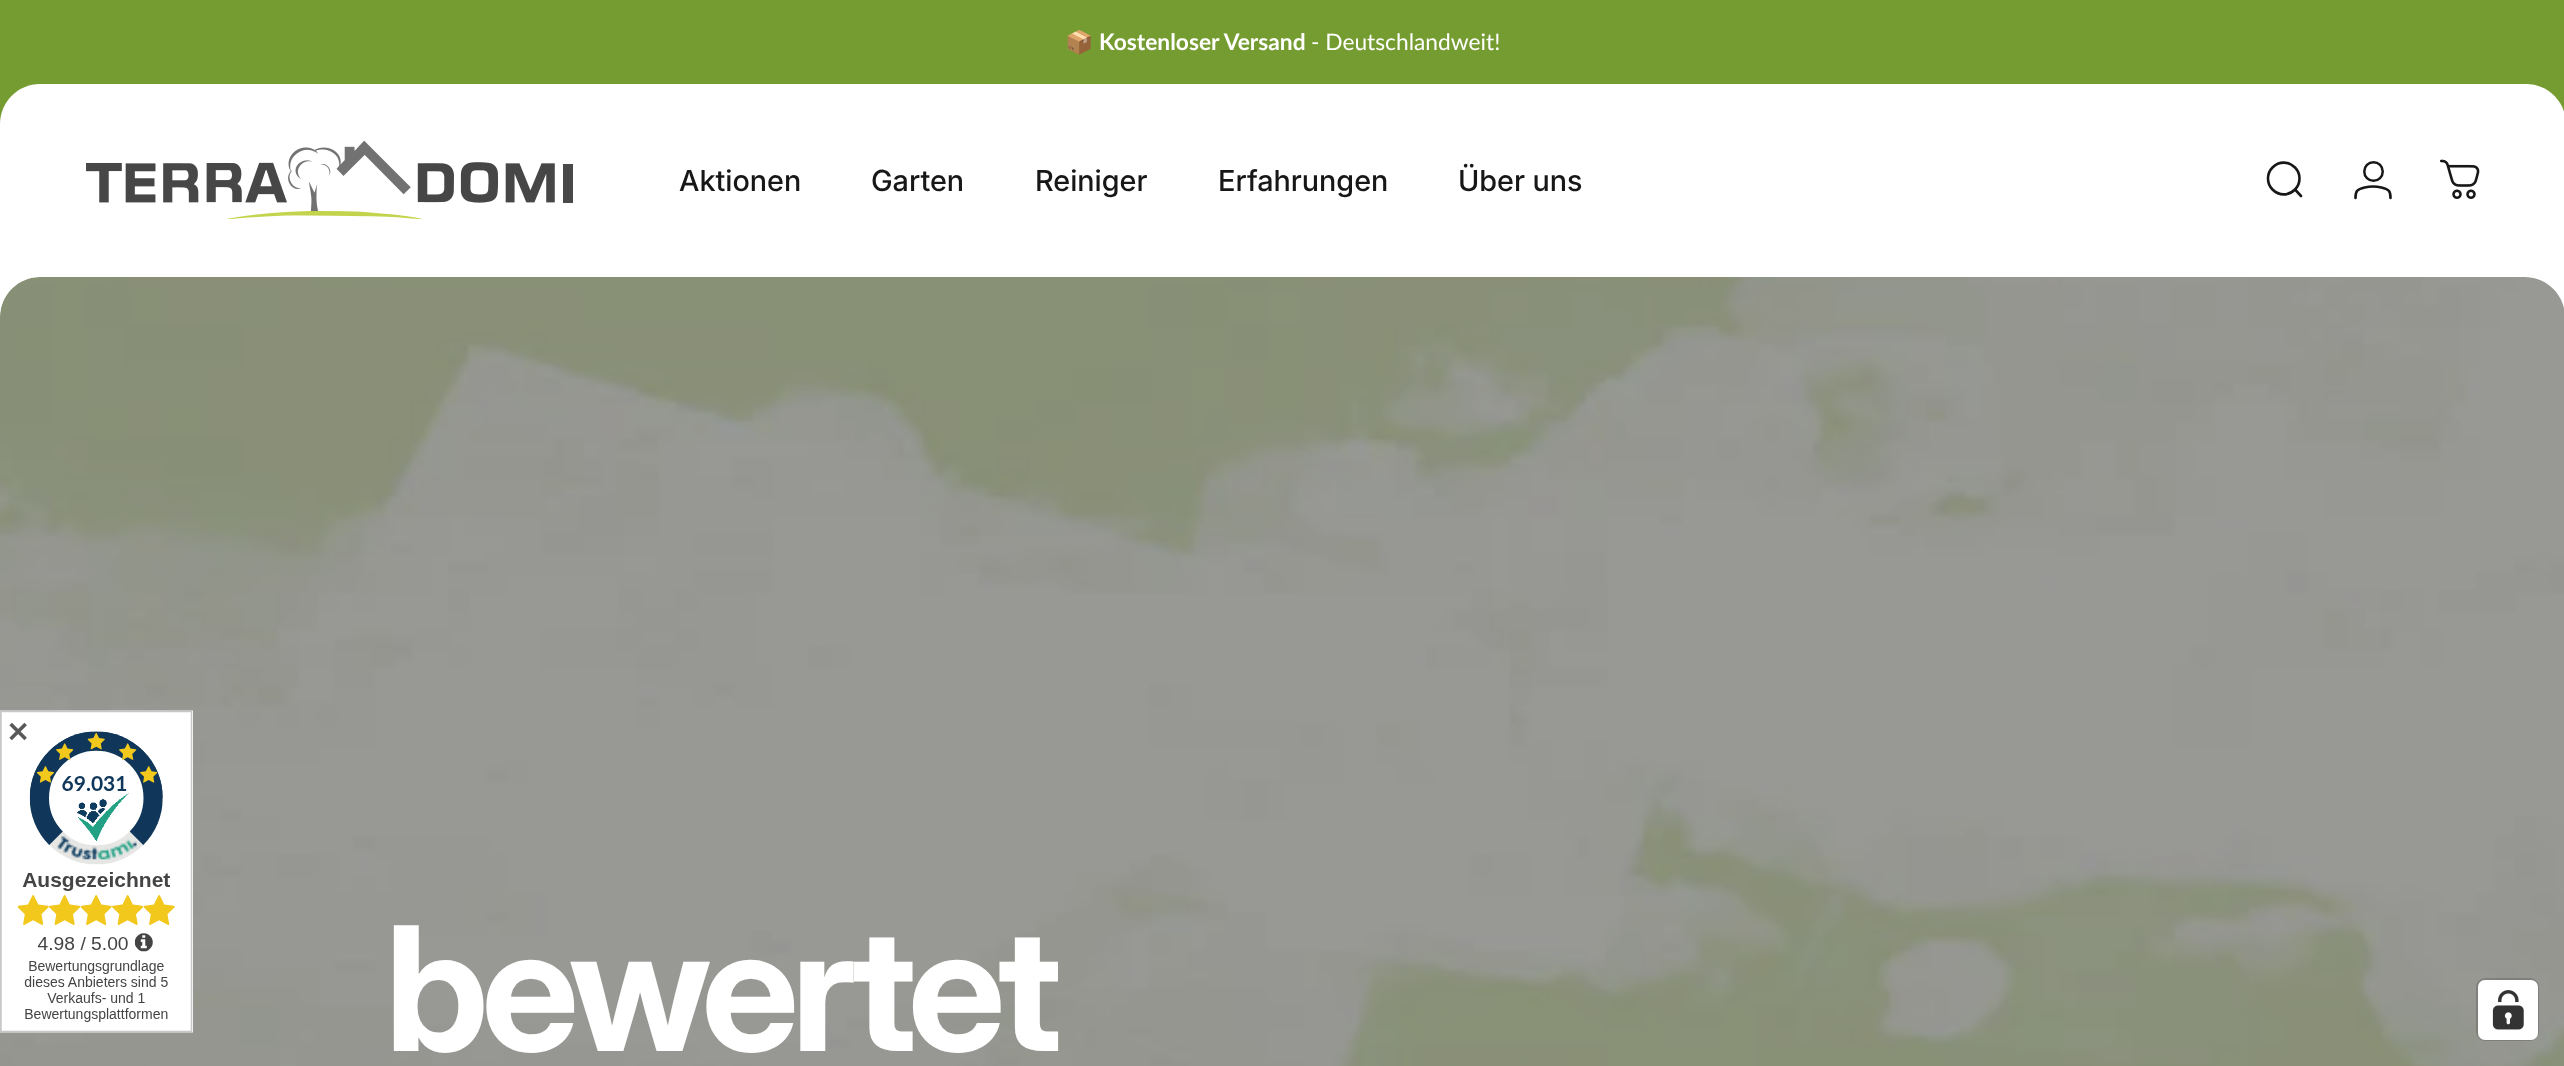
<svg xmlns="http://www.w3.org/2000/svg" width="2564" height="1066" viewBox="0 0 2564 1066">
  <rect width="100%" height="100%" fill="#ffffff"/>
  <rect x="0" y="0" width="2564" height="40" fill="#759c31"/>
  <path d="M40 0H2526C2548 0 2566 18 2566 40V124H0V40C0 18 18 0 40 0Z" fill="#759c31"/>
  <text x="1065" y="50" font-family="Noto Color Emoji" font-size="22.75" font-weight="bold" fill="#ffffff">📦</text>
  <text x="1099" y="50" font-family="Lato" font-size="22.75" font-weight="bold" fill="#ffffff">Kostenloser Versand</text>
  <text x="1311" y="50" font-family="Lato" font-size="22.75" fill="#ffffff">- Deutschlandweit!</text>
  <path d="M40 84H2526C2548 84 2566 102 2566 124V277H0V124C0 102 18 84 40 84Z" fill="#ffffff"/>
  <image x="86" y="140" width="487" height="80" href="img1.png"/>
  <text x="679" y="191" font-family="Inter" font-size="29" font-weight="500" fill="#171717">Aktionen</text>
  <text x="871" y="191" font-family="Inter" font-size="29" font-weight="500" fill="#171717">Garten</text>
  <text x="1035" y="191" font-family="Inter" font-size="29" font-weight="500" fill="#171717">Reiniger</text>
  <text x="1218" y="191" font-family="Inter" font-size="29" font-weight="500" fill="#171717">Erfahrungen</text>
  <text x="1458" y="191" font-family="Inter" font-size="29" font-weight="500" fill="#171717">Über uns</text>
  <path d="M2301 196L2295 189.5M2295 189.5C2301 183.5 2301 173.5 2295 167.5C2288.5 161 2279 161 2272.5 167.5C2266.5 173.5 2266.5 183.5 2272.5 189.5C2279 196 2288.5 196 2295 189.5Z" fill="none" stroke="#171717" stroke-width="2.6" stroke-linecap="round"/>
  <circle cx="2373.5" cy="171.5" r="9.25" fill="none" stroke="#171717" stroke-width="2.5"/>
  <path d="M2373 186.5C2377 186.5 2386 187.5 2389 191C2390.5 193 2390.5 195 2390.5 198M2373 186.5C2369 186.5 2360 187.5 2357 191C2355.5 193 2355.5 195 2355.5 198" fill="none" stroke="#171717" stroke-width="2.6" stroke-linecap="round"/>
  <image x="2440" y="159" width="40" height="40" href="img2.png"/>
  <image x="0" y="277" width="2564" height="789" href="img4.png"/>
  <path d="M40 277H2526C2548 277 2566 295 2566 317V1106H0V317C0 295 18 277 40 277Z" fill="#000000" fill-opacity="0.4"/>
  <path d="M40 276H0V317C0 295 18 277 40 277Z" fill="#ffffff" fill-rule="evenodd"/>
  <path d="M2525 276H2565V317C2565 295 2547 277 2525 277Z" fill="#ffffff" fill-rule="evenodd"/>
  <image x="0" y="710" width="193" height="323" href="img3.png"/>
  <text x="6" y="742" font-family="DejaVu Sans" font-size="28" font-weight="bold" fill="#595959">✕</text>
  <text x="385" y="1051" font-family="Inter" font-size="173" font-weight="bold" letter-spacing="-7" fill="#ffffff">bewertet</text>
  <rect x="2477" y="979" width="61" height="61" rx="8" fill="none" stroke="#000000" stroke-opacity="0.15" stroke-width="2"/>
  <rect x="2478" y="980" width="60" height="60" rx="7" fill="#ffffff"/>
  <image x="2492" y="990" width="32" height="40" href="img5.png"/>
</svg>
